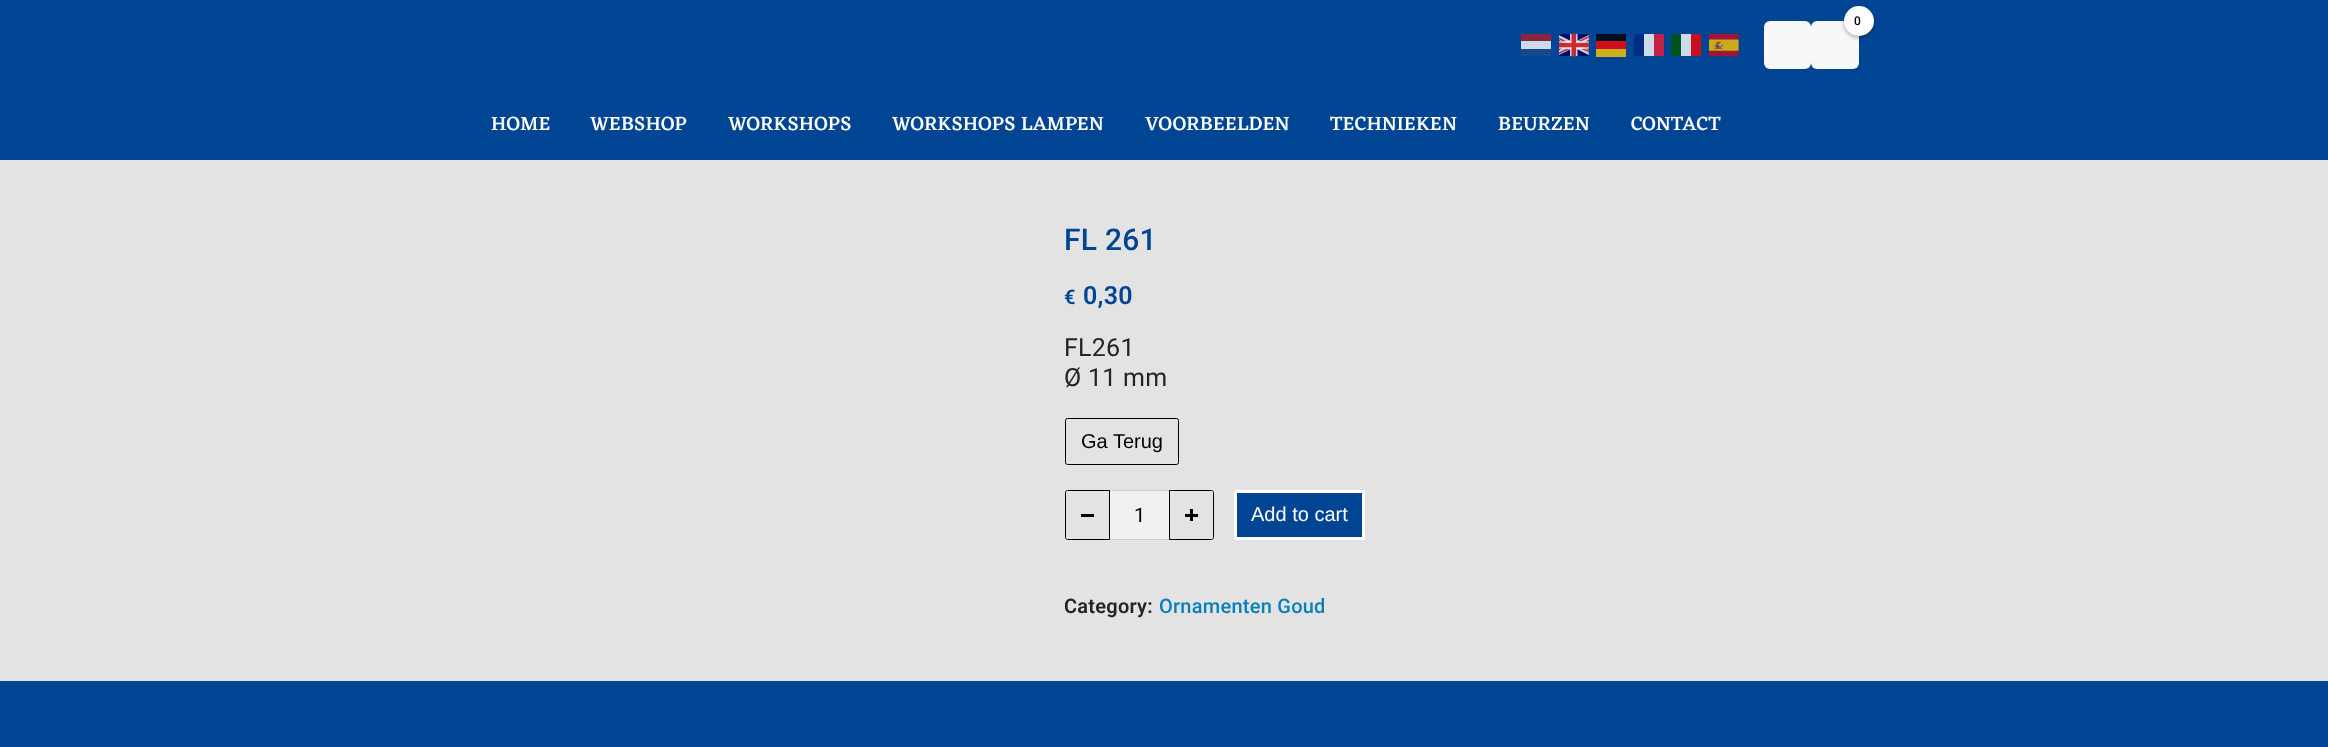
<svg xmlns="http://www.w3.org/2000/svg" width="2328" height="747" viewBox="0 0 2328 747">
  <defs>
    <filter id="blur1" x="-50%" y="-200%" width="200%" height="500%"><feGaussianBlur stdDeviation="2"/></filter>
  </defs>
  <rect width="100%" height="100%" fill="#e3e3e3"/>
  <rect x="0" y="0" width="2328" height="160" fill="#004593"/>
  <rect x="1521" y="34" width="30" height="7" fill="#8b243d"/>
  <image x="1559" y="33" width="30" height="24" href="img1.png"/>
  <rect x="1596" y="34" width="30" height="7" fill="#000e1d"/>
  <rect x="1634" y="34" width="10" height="22" fill="#002c83"/>
  <rect x="1644" y="34" width="10" height="22" fill="#ccdae9"/>
  <rect x="1654" y="34" width="10" height="22" fill="#c22144"/>
  <rect x="1671" y="34" width="10" height="22" fill="#00531d"/>
  <rect x="1681" y="34" width="10" height="22" fill="#ccdae9"/>
  <rect x="1691" y="34" width="10" height="22" fill="#ca0e1d"/>
  <image x="1709" y="33" width="30" height="24" href="img2.png"/>
  <rect x="1521" y="41" width="30" height="8" fill="#ccdae9"/>
  <rect x="1596" y="41" width="30" height="8" fill="#cc0e1d"/>
  <rect x="1521" y="49" width="30" height="7" fill="#1a468d"/>
  <rect x="1596" y="49" width="30" height="8" fill="#ccb11d"/>
  <rect x="1764" y="21" width="47" height="48" rx="6" fill="#f8f8f8"/>
  <rect x="1811" y="21" width="48" height="48" rx="6" fill="#f8f8f8"/>
  <rect x="1844" y="8" width="30" height="30" rx="15" fill="#000000" fill-opacity="0.3" filter="url(#blur1)"/>
  <circle cx="1859" cy="21" r="15" fill="#ffffff"/>
  <text x="1854" y="25" font-family="Roboto" font-size="12" font-weight="500" letter-spacing="0.25" fill="#000000">0</text>
  <text x="491" y="130" font-family="Eczar" font-size="20" font-weight="500" letter-spacing="0.25" fill="#ffffff">HOME</text>
  <text x="590" y="130" font-family="Eczar" font-size="20" font-weight="500" letter-spacing="0.25" fill="#ffffff">WEBSHOP</text>
  <text x="728" y="130" font-family="Eczar" font-size="20" font-weight="500" letter-spacing="0.25" fill="#ffffff">WORKSHOPS</text>
  <text x="892" y="130" font-family="Eczar" font-size="20" font-weight="500" letter-spacing="0.25" fill="#ffffff">WORKSHOPS LAMPEN</text>
  <text x="1145" y="130" font-family="Eczar" font-size="20" font-weight="500" letter-spacing="0.25" fill="#ffffff">VOORBEELDEN</text>
  <text x="1330" y="130" font-family="Eczar" font-size="20" font-weight="500" letter-spacing="0.25" fill="#ffffff">TECHNIEKEN</text>
  <text x="1498" y="130" font-family="Eczar" font-size="20" font-weight="500" letter-spacing="0.25" fill="#ffffff">BEURZEN</text>
  <text x="1631" y="130" font-family="Eczar" font-size="20" font-weight="500" letter-spacing="0.25" fill="#ffffff">CONTACT</text>
  <text x="1064" y="250" font-family="Roboto" font-size="30" font-weight="500" letter-spacing="0.25" fill="#004593">FL 261</text>
  <text x="1064" y="304" font-family="Roboto" font-size="20" font-weight="600" letter-spacing="0.25" fill="#004593">€</text>
  <text x="1083" y="304" font-family="Roboto" font-size="25" font-weight="600" letter-spacing="0.25" fill="#004593">0,30</text>
  <text x="1064" y="356" font-family="Roboto" font-size="25" letter-spacing="0.25" fill="#212529">FL261</text>
  <text x="1064" y="386" font-family="Roboto" font-size="25" letter-spacing="0.25" fill="#212529">Ø 11 mm</text>
  <rect x="1065.5" y="418.5" width="113" height="46" rx="2" fill="none" stroke="#000000"/>
  <text x="1081" y="448" font-family="Liberation Sans" font-size="20" fill="#000000">Ga Terug</text>
  <path d="M1067.5 490.5H1109.5V539.5H1067.5C1066.5 539.5 1065.5 538.5 1065.5 537.5V492.5C1065.5 491.5 1066.5 490.5 1067.5 490.5Z" fill="none" stroke="#000000"/>
  <rect x="1081" y="514" width="13" height="3" fill="#000000"/>
  <rect x="1110" y="491" width="59" height="48" fill="#f1f1f1"/>
  <rect x="1110" y="490" width="60" height="1" fill="#cdcdcd"/>
  <rect x="1110" y="539" width="60" height="1" fill="#cdcdcd"/>
  <text x="1134" y="522" font-family="Roboto" font-size="20" fill="#000000">1</text>
  <path d="M1169.5 490.5H1211.5C1212.5 490.5 1213.5 491.5 1213.5 492.5V537.5C1213.5 538.5 1212.5 539.5 1211.5 539.5H1169.5Z" fill="none" stroke="#000000"/>
  <rect x="1185" y="514" width="13" height="3" fill="#000000"/>
  <rect x="1190" y="509" width="3" height="12" fill="#000000"/>
  <rect x="1235.5" y="491.5" width="128" height="47" rx="1" fill="#004593" stroke="#ffffff" stroke-width="3"/>
  <text x="1251" y="521" font-family="Liberation Sans" font-size="20" fill="#ffffff">Add to cart</text>
  <text x="1064" y="613" font-family="Roboto" font-size="20" font-weight="600" letter-spacing="0.25" fill="#212529">Category:</text>
  <text x="1159" y="613" font-family="Roboto" font-size="20" font-weight="500" letter-spacing="0.25" fill="#067fbb">Ornamenten Goud</text>
  <rect x="0" y="681" width="2328" height="66" fill="#004593"/>
</svg>
